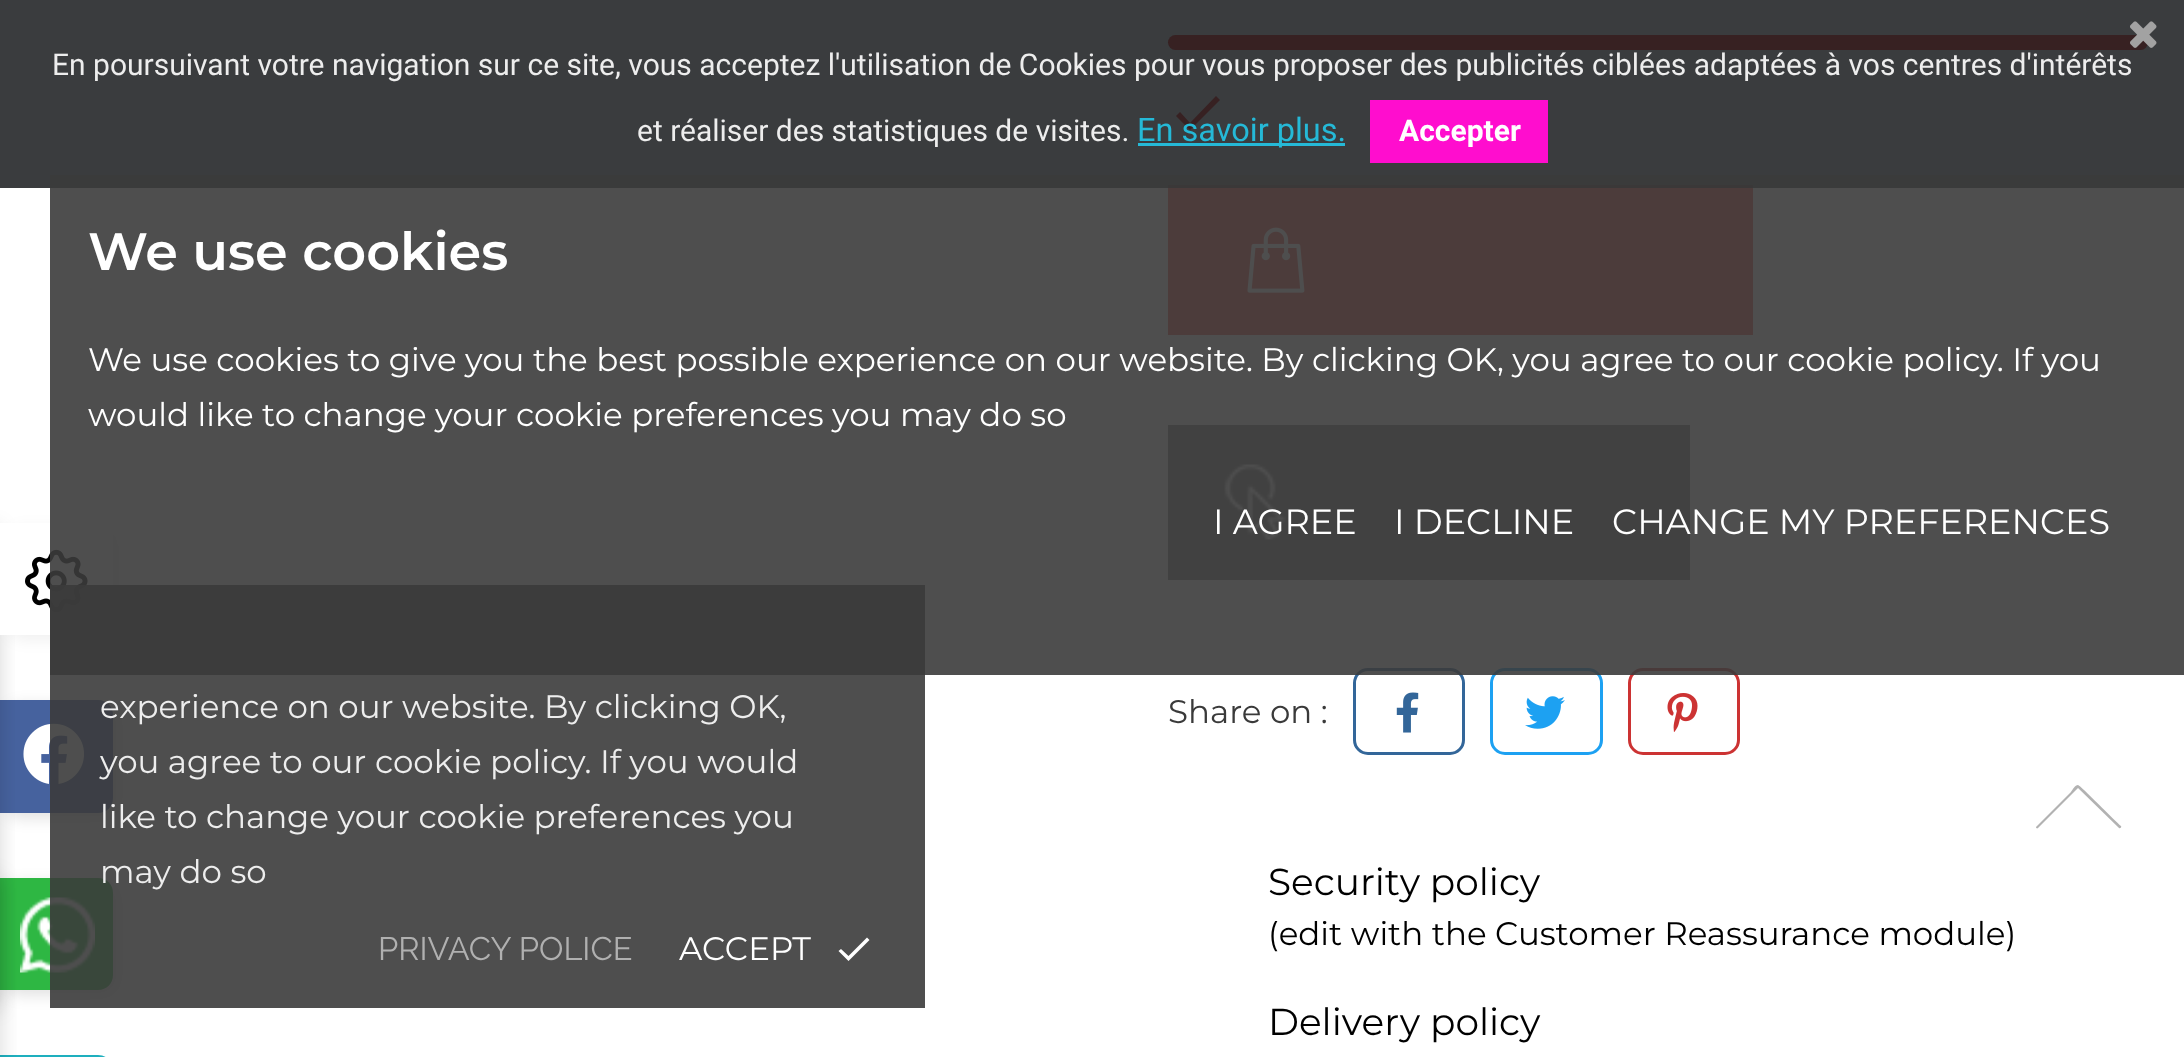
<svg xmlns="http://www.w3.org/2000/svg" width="2184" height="1057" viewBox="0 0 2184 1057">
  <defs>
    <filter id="blur1" x="-50%" y="-200%" width="200%" height="500%"><feGaussianBlur stdDeviation="7.5"/></filter>
    <filter id="blur2" x="-50%" y="-200%" width="200%" height="500%"><feGaussianBlur stdDeviation="10"/></filter>
    <filter id="blur3" x="-50%" y="-200%" width="200%" height="500%"><feGaussianBlur stdDeviation="11"/></filter>
  </defs>
  <rect width="100%" height="100%" fill="#ffffff"/>
  <rect x="0" y="0" width="2184" height="188" fill="#3a3c3e"/>
  <rect x="1168" y="35" width="980" height="15" rx="7.5" fill="#372122"/>
  <image x="2130" y="21" width="27" height="27" href="img1.png"/>
  <text x="52" y="75" font-family="Roboto" font-size="30" fill="#ededed">En poursuivant votre navigation sur ce site, vous acceptez l'utilisation de Cookies pour vous proposer des publicités ciblées adaptées à vos centres d'intérêts</text>
  <text x="637" y="141" font-family="Roboto" font-size="30" fill="#ededed">et réaliser des statistiques de visites.</text>
  <rect x="1138" y="143" width="207" height="3" fill="#25b9d7"/>
  <path d="M1190 123L1216 96L1220 100L1190 130L1176 116L1180 112Z" fill="#372122"/>
  <text x="1137" y="141" font-family="Roboto" font-size="32.5" fill="#25b9d7">En savoir plus.</text>
  <rect x="1370" y="100" width="178" height="63" fill="#ff0dce"/>
  <text x="1399" y="141" font-family="Roboto" font-size="30" font-weight="bold" fill="#ffffff">Accepter</text>
  <rect x="8" y="528" width="112" height="112" rx="15" fill="#000000" fill-opacity="0.06" filter="url(#blur1)"/>
  <rect x="5" y="705" width="113" height="113" rx="15" fill="#000000" fill-opacity="0.12" filter="url(#blur1)"/>
  <path d="M0 700H98C106.5 700 113 706.5 113 715V798C113 806.5 106.5 813 98 813H0Z" fill="#46629e"/>
  <image x="23" y="723" width="61" height="61" href="img3.png"/>
  <rect x="5" y="883" width="113" height="112" rx="15" fill="#000000" fill-opacity="0.12" filter="url(#blur1)"/>
  <path d="M0 878H98C106.5 878 113 884.5 113 893V975C113 983.5 106.5 990 98 990H0Z" fill="#2eb743"/>
  <image x="20" y="897" width="75" height="76" href="img9.png"/>
  <rect x="-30" y="528" width="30" height="480" fill="#000000" fill-opacity="0.16" filter="url(#blur2)"/>
  <path d="M0 523H98C106.5 523 113 529.5 113 538V620C113 628.5 106.5 635 98 635H0Z" fill="#ffffff"/>
  <image x="25" y="549" width="63" height="64" href="img2.png"/>
  <rect x="50" y="585" width="875" height="423" fill="#3b3b3b" fill-opacity="0.9"/>
  <rect x="1168" y="188" width="585" height="147" fill="#ec4c44"/>
  <rect x="1168" y="185" width="585" height="3" fill="#372122"/>
  <image x="1247" y="227" width="58" height="66" href="img4.png"/>
  <rect x="1168" y="425" width="522" height="155" fill="#7d7d7d"/>
  <image x="1224" y="464" width="62" height="76" href="img5.png"/>
  <rect x="1354.5" y="669.5" width="109" height="84" rx="13.5" fill="none" stroke="#336699" stroke-width="3"/>
  <rect x="1491.5" y="669.5" width="110" height="84" rx="13.5" fill="none" stroke="#1da1f2" stroke-width="3"/>
  <rect x="1629.5" y="669.5" width="109" height="84" rx="13.5" fill="none" stroke="#cc3333" stroke-width="3"/>
  <rect x="50" y="175" width="2134" height="500" fill="#3b3b3b" fill-opacity="0.9"/>
  <text x="88" y="270" font-family="Montserrat" font-size="52.5" font-weight="600" fill="#ffffff">We use cookies</text>
  <text x="88" y="371" font-family="Montserrat" font-size="32.5" fill="#ffffff">We use cookies to give you the best possible experience on our website. By clicking OK, you agree to our cookie policy. If you</text>
  <text x="88" y="426" font-family="Montserrat" font-size="32.5" fill="#ffffff">would like to change your cookie preferences you may do so</text>
  <text x="1213" y="534" font-family="Montserrat" font-size="35" fill="#ffffff">I AGREE</text>
  <text x="1394" y="534" font-family="Montserrat" font-size="35" fill="#ffffff">I DECLINE</text>
  <text x="1612" y="534" font-family="Montserrat" font-size="35" fill="#ffffff">CHANGE MY PREFERENCES</text>
  <text x="100" y="718" font-family="Montserrat" font-size="32.5" fill="#ededed">experience on our website. By clicking OK,</text>
  <text x="100" y="773" font-family="Montserrat" font-size="32.5" fill="#ededed">you agree to our cookie policy. If you would</text>
  <text x="100" y="828" font-family="Montserrat" font-size="32.5" fill="#ededed">like to change your cookie preferences you</text>
  <text x="100" y="883" font-family="Montserrat" font-size="32.5" fill="#ededed">may do so</text>
  <text x="378" y="960" font-family="Raleway" font-size="32.5" fill="#b0b0b0">PRIVACY POLICE</text>
  <text x="679" y="960" font-family="Montserrat" font-size="32.5" fill="#ffffff">ACCEPT</text>
  <path d="M848.5 956L867 937.5L869.5 940L848.5 961L838.5 951L841 949Z" fill="#ffffff"/>
  <text x="1168" y="723" font-family="Montserrat" font-size="32.5" fill="#3a3a3a">Share on :</text>
  <image x="1396" y="692" width="23" height="41" href="img6.png"/>
  <image x="1525" y="696" width="40" height="33" href="img7.png"/>
  <image x="1667" y="693" width="31" height="39" href="img8.png"/>
  <text x="1268" y="895" font-family="Montserrat" font-size="37.5" fill="#000000">Security policy</text>
  <text x="1268" y="945" font-family="Montserrat" font-size="32.5" fill="#000000">(edit with the Customer Reassurance module)</text>
  <text x="1268" y="1035" font-family="Montserrat" font-size="37.5" fill="#000000">Delivery policy</text>
  <path d="M0 1055H98C106.5 1055 113 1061.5 113 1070V1057C113 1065.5 106.5 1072 98 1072H0Z" fill="#1eafbe"/>
  <rect x="-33" y="878" width="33" height="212" fill="#000000" fill-opacity="0.15" filter="url(#blur3)"/>
  <path d="M2078 785C2075 785 2073 789 2071 792L2036 827C2036 828 2037 829 2038 828L2078 788L2119 828C2120 829 2122 827 2121 826C2116 822 2080 785 2078 785Z" fill="#b2b2b2"/>
</svg>
